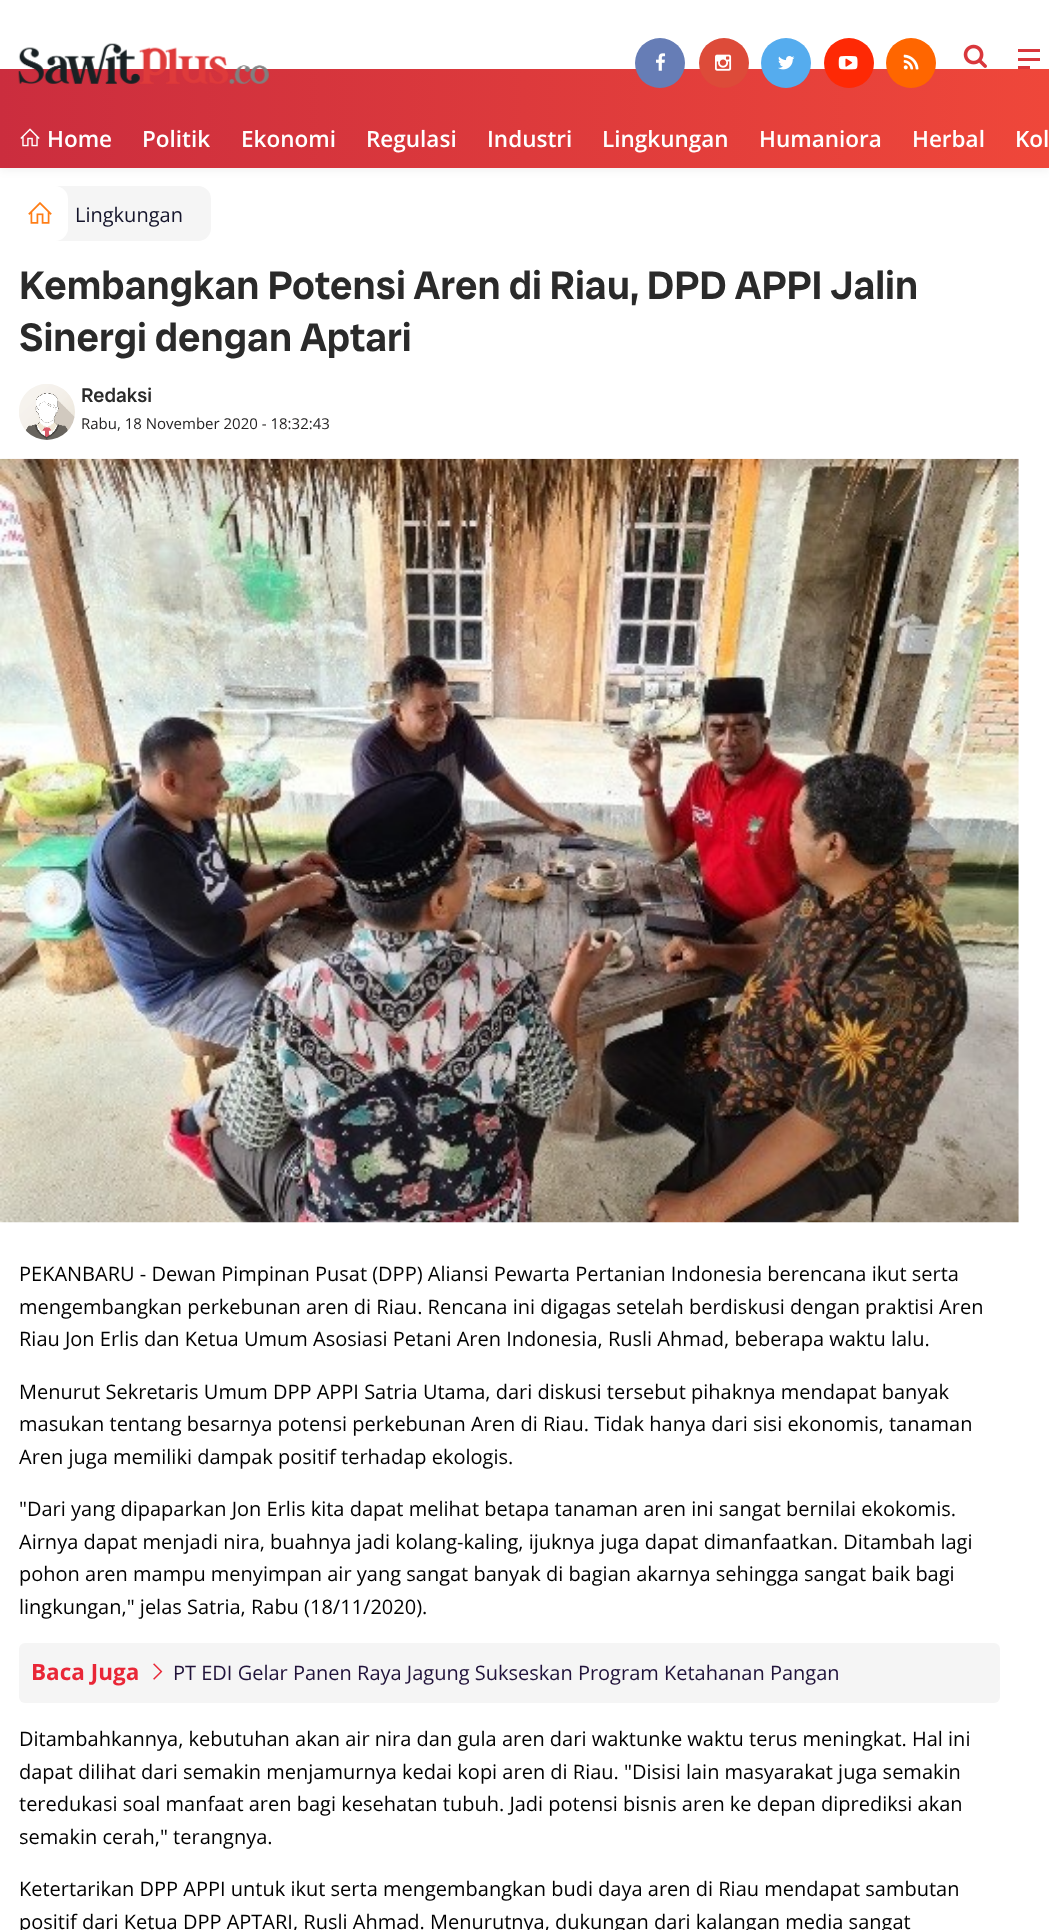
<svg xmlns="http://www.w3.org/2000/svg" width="1049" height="1930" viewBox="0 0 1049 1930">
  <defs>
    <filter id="blur1" x="-50%" y="-200%" width="200%" height="500%"><feGaussianBlur stdDeviation="5"/></filter>
    <linearGradient id="g1" gradientUnits="userSpaceOnUse" x1="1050" y1="118" x2="0" y2="118"><stop offset="0" stop-color="#ef473a"/><stop offset="1" stop-color="#cb2d3e"/></linearGradient>
  </defs>
  <rect width="100%" height="100%" fill="#ffffff"/>
  <rect x="0" y="3" width="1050" height="167" fill="#000000" fill-opacity="0.06" filter="url(#blur1)"/>
  <rect x="0" y="0" width="1049" height="69" fill="#ffffff"/>
  <rect x="0" y="69" width="1049" height="99" fill="url(#g1)"/>
  <image x="18" y="43" width="251" height="41" href="img1.png"/>
  <circle cx="660" cy="63" r="25" fill="#667db6"/>
  <image x="656" y="53" width="10" height="18" href="img2.png"/>
  <circle cx="724" cy="63" r="25" fill="#dd4b39"/>
  <image x="715" y="54" width="17" height="17" href="img3.png"/>
  <circle cx="786" cy="63" r="25" fill="#55acee"/>
  <image x="778" y="56" width="17" height="14" href="img4.png"/>
  <circle cx="849" cy="63" r="25" fill="#fe2905"/>
  <image x="838" y="56" width="20" height="14" href="img5.png"/>
  <circle cx="911" cy="63" r="25" fill="#ff6600"/>
  <image x="903" y="54" width="16" height="16" href="img6.png"/>
  <image x="963" y="44" width="24" height="24" href="img7.png"/>
  <rect x="1018" y="58" width="22" height="3" fill="#d9373c"/>
  <rect x="1018" y="49" width="22" height="3" fill="#d9373c"/>
  <rect x="1018" y="66" width="12" height="3" fill="#d9373c"/>
  <image x="20" y="128" width="20" height="19" href="img8.png"/>
  <text x="47" y="147" font-family="Open Sans" font-size="22.5" font-weight="600" fill="#ffffff">Home</text>
  <text x="142" y="147" font-family="Open Sans" font-size="22.5" font-weight="600" fill="#ffffff">Politik</text>
  <text x="241" y="147" font-family="Open Sans" font-size="22.5" font-weight="600" fill="#ffffff">Ekonomi</text>
  <text x="366" y="147" font-family="Open Sans" font-size="22.5" font-weight="600" fill="#ffffff">Regulasi</text>
  <text x="487" y="147" font-family="Open Sans" font-size="22.5" font-weight="600" fill="#ffffff">Industri</text>
  <text x="602" y="147" font-family="Open Sans" font-size="22.5" font-weight="600" fill="#ffffff">Lingkungan</text>
  <text x="759" y="147" font-family="Open Sans" font-size="22.5" font-weight="600" fill="#ffffff">Humaniora</text>
  <text x="912" y="147" font-family="Open Sans" font-size="22.5" font-weight="600" fill="#ffffff">Herbal</text>
  <text x="1015" y="147" font-family="Open Sans" font-size="22.5" font-weight="600" fill="#ffffff">Kol</text>
  <rect x="19" y="186" width="192" height="55" rx="13" fill="#f5f5f5"/>
  <rect x="13" y="186" width="55" height="55" rx="13" fill="#ffffff"/>
  <image x="28" y="202" width="24" height="22" href="img9.png"/>
  <text x="75" y="222" font-family="Open Sans" font-size="20" fill="#14142b">Lingkungan</text>
  <text x="19" y="299" font-family="Radio Canada Big" font-size="40" font-weight="600" fill="#2a2a2a">Kembangkan Potensi Aren di Riau, DPD APPI Jalin</text>
  <text x="19" y="351" font-family="Radio Canada Big" font-size="40" font-weight="600" fill="#2a2a2a">Sinergi dengan Aptari</text>
  <image x="19" y="384" width="56" height="56" href="img10.png"/>
  <text x="81" y="402" font-family="Radio Canada Big" font-size="20" font-weight="500" fill="#2a2a2a">Redaksi</text>
  <text x="81" y="429" font-family="Open Sans" font-size="15" fill="#252323">Rabu, 18 November 2020 - 18:32:43</text>
  <image x="0" y="458" width="1019" height="765" href="img11.png"/>
  <text x="19" y="1281" font-family="Open Sans" font-size="20" fill="#000000">PEKANBARU - Dewan Pimpinan Pusat (DPP) Aliansi Pewarta Pertanian Indonesia berencana ikut serta</text>
  <text x="19" y="1314" font-family="Open Sans" font-size="20" fill="#000000">mengembangkan perkebunan aren di Riau. Rencana ini digagas setelah berdiskusi dengan praktisi Aren</text>
  <text x="19" y="1346" font-family="Open Sans" font-size="20" fill="#000000">Riau Jon Erlis dan Ketua Umum Asosiasi Petani Aren Indonesia, Rusli Ahmad, beberapa waktu lalu.</text>
  <text x="19" y="1399" font-family="Open Sans" font-size="20" fill="#000000">Menurut Sekretaris Umum DPP APPI Satria Utama, dari diskusi tersebut pihaknya mendapat banyak</text>
  <text x="19" y="1431" font-family="Open Sans" font-size="20" fill="#000000">masukan tentang besarnya potensi perkebunan Aren di Riau. Tidak hanya dari sisi ekonomis, tanaman</text>
  <text x="19" y="1464" font-family="Open Sans" font-size="20" fill="#000000">Aren juga memiliki dampak positif terhadap ekologis.</text>
  <text x="19" y="1516" font-family="Open Sans" font-size="20" fill="#000000">"Dari yang dipaparkan Jon Erlis kita dapat melihat betapa tanaman aren ini sangat bernilai ekokomis.</text>
  <text x="19" y="1549" font-family="Open Sans" font-size="20" fill="#000000">Airnya dapat menjadi nira, buahnya jadi kolang-kaling, ijuknya juga dapat dimanfaatkan. Ditambah lagi</text>
  <text x="19" y="1581" font-family="Open Sans" font-size="20" fill="#000000">pohon aren mampu menyimpan air yang sangat banyak di bagian akarnya sehingga sangat baik bagi</text>
  <text x="19" y="1614" font-family="Open Sans" font-size="20" fill="#000000">lingkungan," jelas Satria, Rabu (18/11/2020).</text>
  <rect x="19" y="1643" width="981" height="60" rx="6" fill="#f5f5f5"/>
  <text x="31" y="1680" font-family="Open Sans" font-size="22.5" font-weight="bold" fill="#e92737">Baca Juga</text>
  <image x="153" y="1663" width="10" height="17" href="img12.png"/>
  <text x="173" y="1680" font-family="Open Sans" font-size="20" fill="#20123a">PT EDI Gelar Panen Raya Jagung Sukseskan Program Ketahanan Pangan</text>
  <text x="19" y="1746" font-family="Open Sans" font-size="20" fill="#000000">Ditambahkannya, kebutuhan akan air nira dan gula aren dari waktunke waktu terus meningkat. Hal ini</text>
  <text x="19" y="1779" font-family="Open Sans" font-size="20" fill="#000000">dapat dilihat dari semakin menjamurnya kedai kopi aren di Riau. "Disisi lain masyarakat juga semakin</text>
  <text x="19" y="1811" font-family="Open Sans" font-size="20" fill="#000000">teredukasi soal manfaat aren bagi kesehatan tubuh. Jadi potensi bisnis aren ke depan diprediksi akan</text>
  <text x="19" y="1844" font-family="Open Sans" font-size="20" fill="#000000">semakin cerah," terangnya.</text>
  <text x="19" y="1896" font-family="Open Sans" font-size="20" fill="#000000">Ketertarikan DPP APPI untuk ikut serta mengembangkan budi daya aren di Riau mendapat sambutan</text>
  <text x="19" y="1929" font-family="Open Sans" font-size="20" fill="#000000">positif dari Ketua DPP APTARI, Rusli Ahmad. Menurutnya, dukungan dari kalangan media sangat</text>
</svg>
